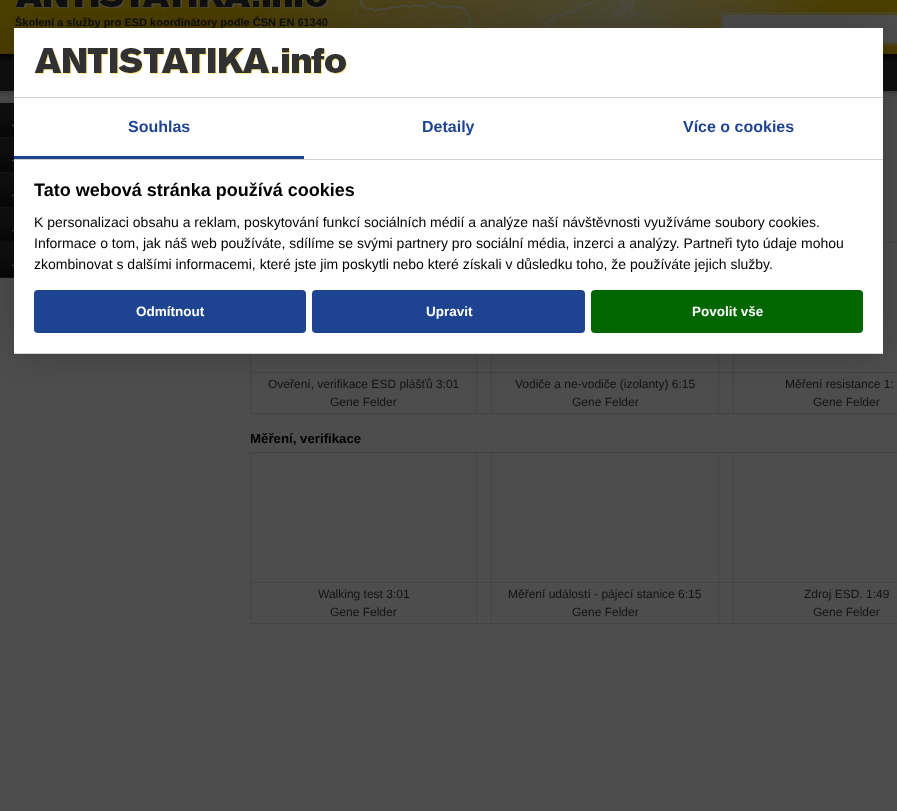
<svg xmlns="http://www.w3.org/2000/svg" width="897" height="811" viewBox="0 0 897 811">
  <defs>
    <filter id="blur1" x="-50%" y="-200%" width="200%" height="500%"><feGaussianBlur stdDeviation="20"/></filter>
  </defs>
  <rect width="100%" height="100%" fill="#4d4d4d"/>
  <image x="0" y="0" width="134" height="54" href="img1.png"/>
  <image x="134" y="0" width="763" height="54" href="img2.png"/>
  <image x="15" y="0" width="313" height="8" href="img3.png"/>
  <text x="15" y="26" font-family="Liberation Sans" font-size="11" font-weight="bold" fill="#0e0e0e">Školení a služby pro ESD koordinátory podle ČSN EN 61340</text>
  <rect x="724" y="17" width="173" height="23" fill="#4d4d4d"/>
  <image x="0" y="54" width="897" height="47" href="img4.png"/>
  <rect x="0" y="131" width="14" height="6" fill="#080808"/>
  <image x="0" y="103" width="14" height="28" href="img5.png"/>
  <rect x="0" y="137" width="14" height="1" fill="#141414"/>
  <rect x="12" y="125" width="2" height="1" fill="#4d4d4d"/>
  <rect x="0" y="166" width="14" height="6" fill="#080808"/>
  <image x="0" y="138" width="14" height="28" href="img5.png"/>
  <rect x="0" y="172" width="14" height="1" fill="#141414"/>
  <rect x="12" y="160" width="2" height="1" fill="#4d4d4d"/>
  <rect x="0" y="201" width="14" height="6" fill="#080808"/>
  <image x="0" y="173" width="14" height="28" href="img5.png"/>
  <rect x="0" y="207" width="14" height="1" fill="#141414"/>
  <rect x="12" y="195" width="2" height="1" fill="#4d4d4d"/>
  <rect x="0" y="236" width="14" height="6" fill="#080808"/>
  <image x="0" y="208" width="14" height="28" href="img5.png"/>
  <rect x="0" y="242" width="14" height="1" fill="#141414"/>
  <image x="12" y="230" width="2" height="1" href="img6.png"/>
  <rect x="0" y="271" width="14" height="6" fill="#080808"/>
  <image x="0" y="243" width="14" height="28" href="img5.png"/>
  <rect x="0" y="277" width="14" height="1" fill="#141414"/>
  <rect x="12" y="265" width="2" height="1" fill="#4d4d4d"/>
  <rect x="250" y="413" width="647" height="1" fill="#444444"/>
  <rect x="733" y="372" width="164" height="1" fill="#444444"/>
  <rect x="733" y="372" width="1" height="42" fill="#444444"/>
  <rect x="718" y="372" width="16" height="1" fill="#444444"/>
  <rect x="718" y="372" width="1" height="42" fill="#444444"/>
  <rect x="491" y="372" width="228" height="1" fill="#444444"/>
  <rect x="491" y="372" width="1" height="42" fill="#444444"/>
  <rect x="476" y="372" width="16" height="1" fill="#444444"/>
  <rect x="476" y="372" width="1" height="42" fill="#444444"/>
  <rect x="250" y="372" width="227" height="1" fill="#444444"/>
  <rect x="476" y="354" width="1" height="19" fill="#444444"/>
  <rect x="491" y="354" width="1" height="19" fill="#444444"/>
  <rect x="718" y="354" width="1" height="19" fill="#444444"/>
  <rect x="883" y="242" width="14" height="1" fill="#444444"/>
  <rect x="733" y="354" width="1" height="19" fill="#444444"/>
  <rect x="250" y="354" width="1" height="60" fill="#444444"/>
  <text x="268" y="388" font-family="Liberation Sans" font-size="12" fill="#121315">Oveření, verifikace ESD plášťů 3:01</text>
  <text x="330" y="406" font-family="Liberation Sans" font-size="12" fill="#121315">Gene Felder</text>
  <text x="515" y="388" font-family="Liberation Sans" font-size="12" fill="#121315">Vodiče a ne-vodiče (izolanty) 6:15</text>
  <text x="572" y="406" font-family="Liberation Sans" font-size="12" fill="#121315">Gene Felder</text>
  <text x="785" y="388" font-family="Liberation Sans" font-size="12" fill="#121315">Měření resistance 1:</text>
  <text x="813" y="406" font-family="Liberation Sans" font-size="12" fill="#121315">Gene Felder</text>
  <text x="250" y="443" font-family="Liberation Sans" font-size="13.25" font-weight="bold" fill="#000000">Měření, verifikace</text>
  <rect x="250" y="623" width="647" height="1" fill="#444444"/>
  <rect x="733" y="452" width="164" height="1" fill="#444444"/>
  <rect x="733" y="582" width="164" height="1" fill="#444444"/>
  <rect x="733" y="582" width="1" height="42" fill="#444444"/>
  <rect x="718" y="582" width="16" height="1" fill="#444444"/>
  <rect x="733" y="452" width="1" height="131" fill="#444444"/>
  <rect x="718" y="452" width="16" height="1" fill="#444444"/>
  <rect x="718" y="582" width="1" height="42" fill="#444444"/>
  <rect x="491" y="582" width="228" height="1" fill="#444444"/>
  <rect x="718" y="452" width="1" height="131" fill="#444444"/>
  <rect x="491" y="452" width="228" height="1" fill="#444444"/>
  <rect x="491" y="582" width="1" height="42" fill="#444444"/>
  <rect x="476" y="582" width="16" height="1" fill="#444444"/>
  <rect x="491" y="452" width="1" height="131" fill="#444444"/>
  <rect x="476" y="452" width="16" height="1" fill="#444444"/>
  <rect x="476" y="582" width="1" height="42" fill="#444444"/>
  <rect x="250" y="582" width="227" height="1" fill="#444444"/>
  <rect x="476" y="452" width="1" height="131" fill="#444444"/>
  <rect x="250" y="452" width="227" height="1" fill="#444444"/>
  <rect x="250" y="582" width="1" height="42" fill="#444444"/>
  <rect x="250" y="452" width="1" height="131" fill="#444444"/>
  <text x="318" y="598" font-family="Liberation Sans" font-size="12" fill="#121315">Walking test 3:01</text>
  <text x="330" y="616" font-family="Liberation Sans" font-size="12" fill="#121315">Gene Felder</text>
  <text x="508" y="598" font-family="Liberation Sans" font-size="12" fill="#121315">Měření událostí - pájecí stanice 6:15</text>
  <text x="572" y="616" font-family="Liberation Sans" font-size="12" fill="#121315">Gene Felder</text>
  <text x="804" y="598" font-family="Liberation Sans" font-size="12" fill="#121315">Zdroj ESD. 1:49</text>
  <text x="813" y="616" font-family="Liberation Sans" font-size="12" fill="#121315">Gene Felder</text>
  <rect x="14" y="28" width="869" height="326" fill="#000000" fill-opacity="0.2" filter="url(#blur1)"/>
  <rect x="14" y="28" width="869" height="325" fill="#ffffff"/>
  <rect x="14" y="97" width="869" height="1" fill="#d2d2d2"/>
  <image x="34" y="48" width="313" height="26" href="img7.png"/>
  <rect x="14" y="159" width="869" height="1" fill="#d2d2d2"/>
  <rect x="14" y="156" width="290" height="3" fill="#1e4491"/>
  <text x="128" y="132" font-family="Liberation Sans" font-size="16" font-weight="bold" fill="#1e4491">Souhlas</text>
  <text x="422" y="132" font-family="Liberation Sans" font-size="16" font-weight="bold" fill="#1e4491">Detaily</text>
  <text x="683" y="132" font-family="Liberation Sans" font-size="16" font-weight="bold" fill="#1e4491">Více o cookies</text>
  <rect x="14" y="353" width="869" height="1" fill="#d2d2d2"/>
  <text x="34" y="196" font-family="Liberation Sans" font-size="18" font-weight="bold" fill="#000000">Tato webová stránka používá cookies</text>
  <text x="34" y="227" font-family="Liberation Sans" font-size="14" fill="#000000">K personalizaci obsahu a reklam, poskytování funkcí sociálních médií a analýze naší návštěvnosti využíváme soubory cookies.</text>
  <text x="34" y="248" font-family="Liberation Sans" font-size="14" fill="#000000">Informace o tom, jak náš web používáte, sdílíme se svými partnery pro sociální média, inzerci a analýzy. Partneři tyto údaje mohou</text>
  <text x="34" y="269" font-family="Liberation Sans" font-size="14" fill="#000000">zkombinovat s dalšími informacemi, které jste jim poskytli nebo které získali v důsledku toho, že používáte jejich služby.</text>
  <rect x="34" y="290" width="272" height="43" rx="4" fill="#1e4491"/>
  <text x="136" y="316" font-family="Liberation Sans" font-size="13.5" font-weight="bold" fill="#ffffff">Odmítnout</text>
  <rect x="312" y="290" width="273" height="43" rx="4" fill="#1e4491"/>
  <text x="426" y="316" font-family="Liberation Sans" font-size="13.5" font-weight="bold" fill="#ffffff">Upravit</text>
  <rect x="591" y="290" width="272" height="43" rx="4" fill="#006600"/>
  <text x="692" y="316" font-family="Liberation Sans" font-size="13.5" font-weight="bold" fill="#ffffff">Povolit vše</text>
</svg>
